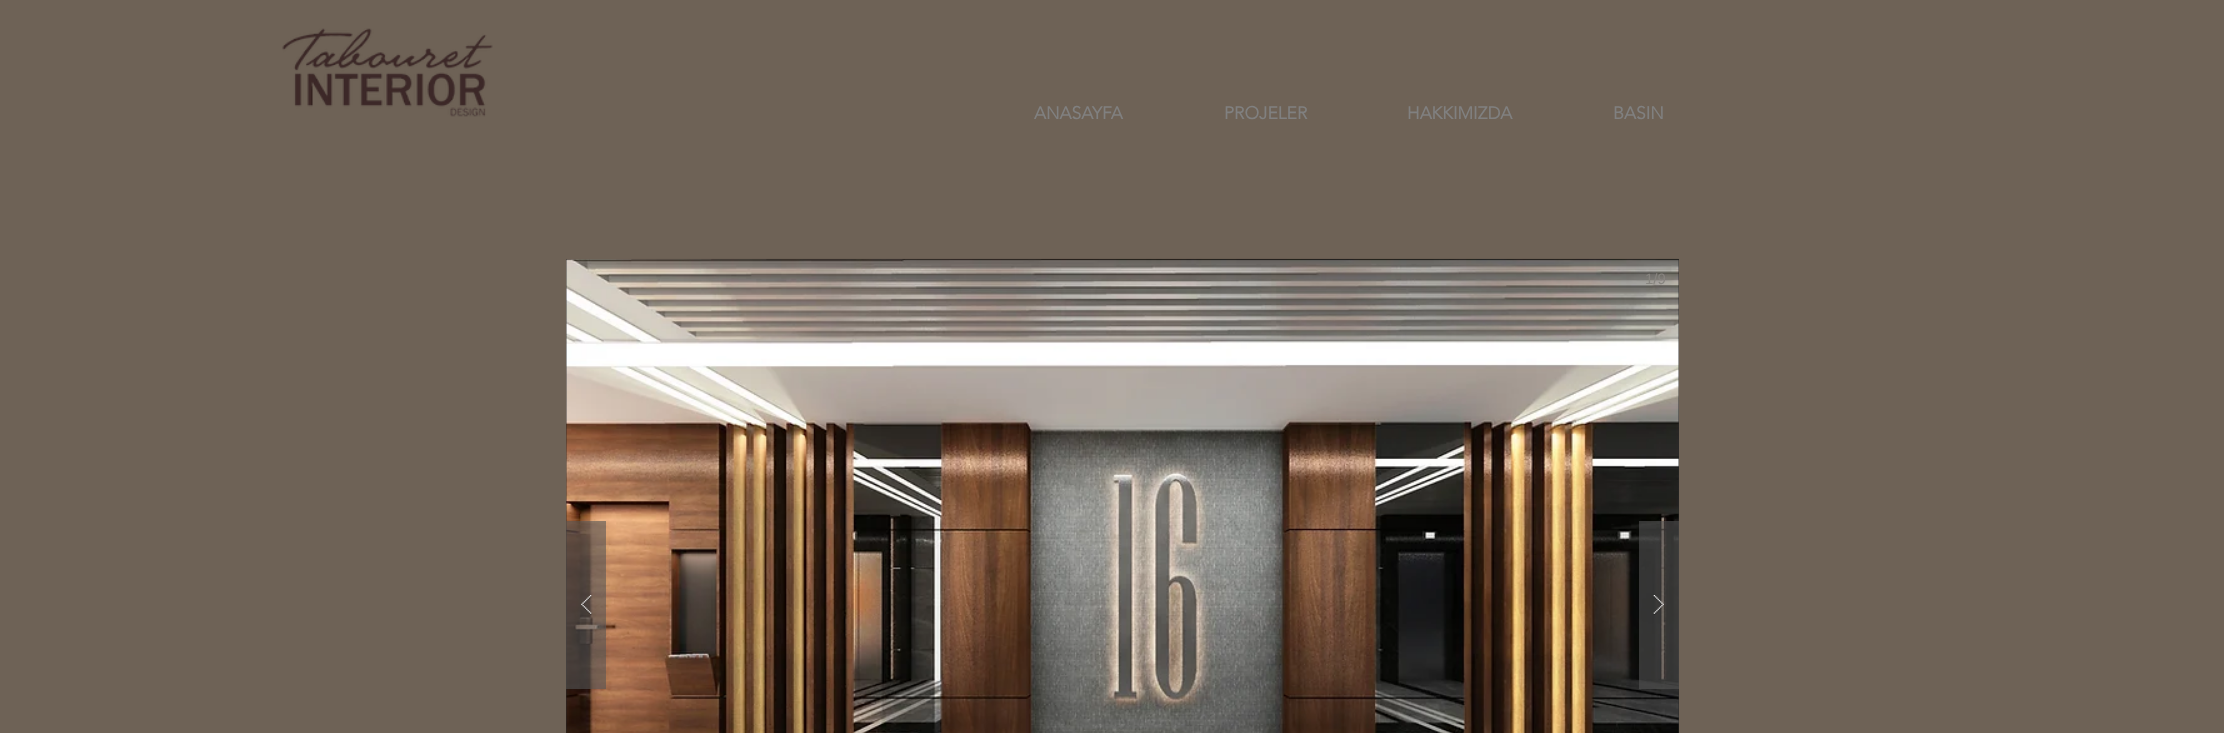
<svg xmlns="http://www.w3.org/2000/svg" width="2224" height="733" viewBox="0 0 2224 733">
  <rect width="100%" height="100%" fill="#6e6256"/>
  <image x="282" y="28" width="211" height="89" href="img1.png"/>
  <text x="1034" y="119" font-family="'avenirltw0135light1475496'" font-size="17.5" font-weight="bold" fill="#808080">ANASAYFA</text>
  <text x="1224" y="119" font-family="'avenirltw0135light1475496'" font-size="17.5" font-weight="bold" fill="#808080">PROJELER</text>
  <text x="1407" y="119" font-family="'avenirltw0135light1475496'" font-size="17.5" font-weight="bold" fill="#808080">HAKKIMIZDA</text>
  <text x="1613" y="119" font-family="'avenirltw0135light1475496'" font-size="17.5" font-weight="bold" fill="#808080">BASIN</text>
  <rect x="566" y="259" width="1113" height="474" fill="#2b2b2b"/>
  <image x="566" y="258" width="1113" height="475" href="img2.png"/>
  <text x="1645" y="284" font-family="Liberation Sans" font-size="15" fill="#87847f">1/9</text>
  <rect x="566" y="521" width="40" height="168" fill="#555555" fill-opacity="0.6"/>
  <image x="581" y="595" width="11" height="20" href="img3.png"/>
  <rect x="1639" y="521" width="40" height="168" fill="#555555" fill-opacity="0.6"/>
  <image x="1653" y="595" width="11" height="20" href="img4.png"/>
</svg>
